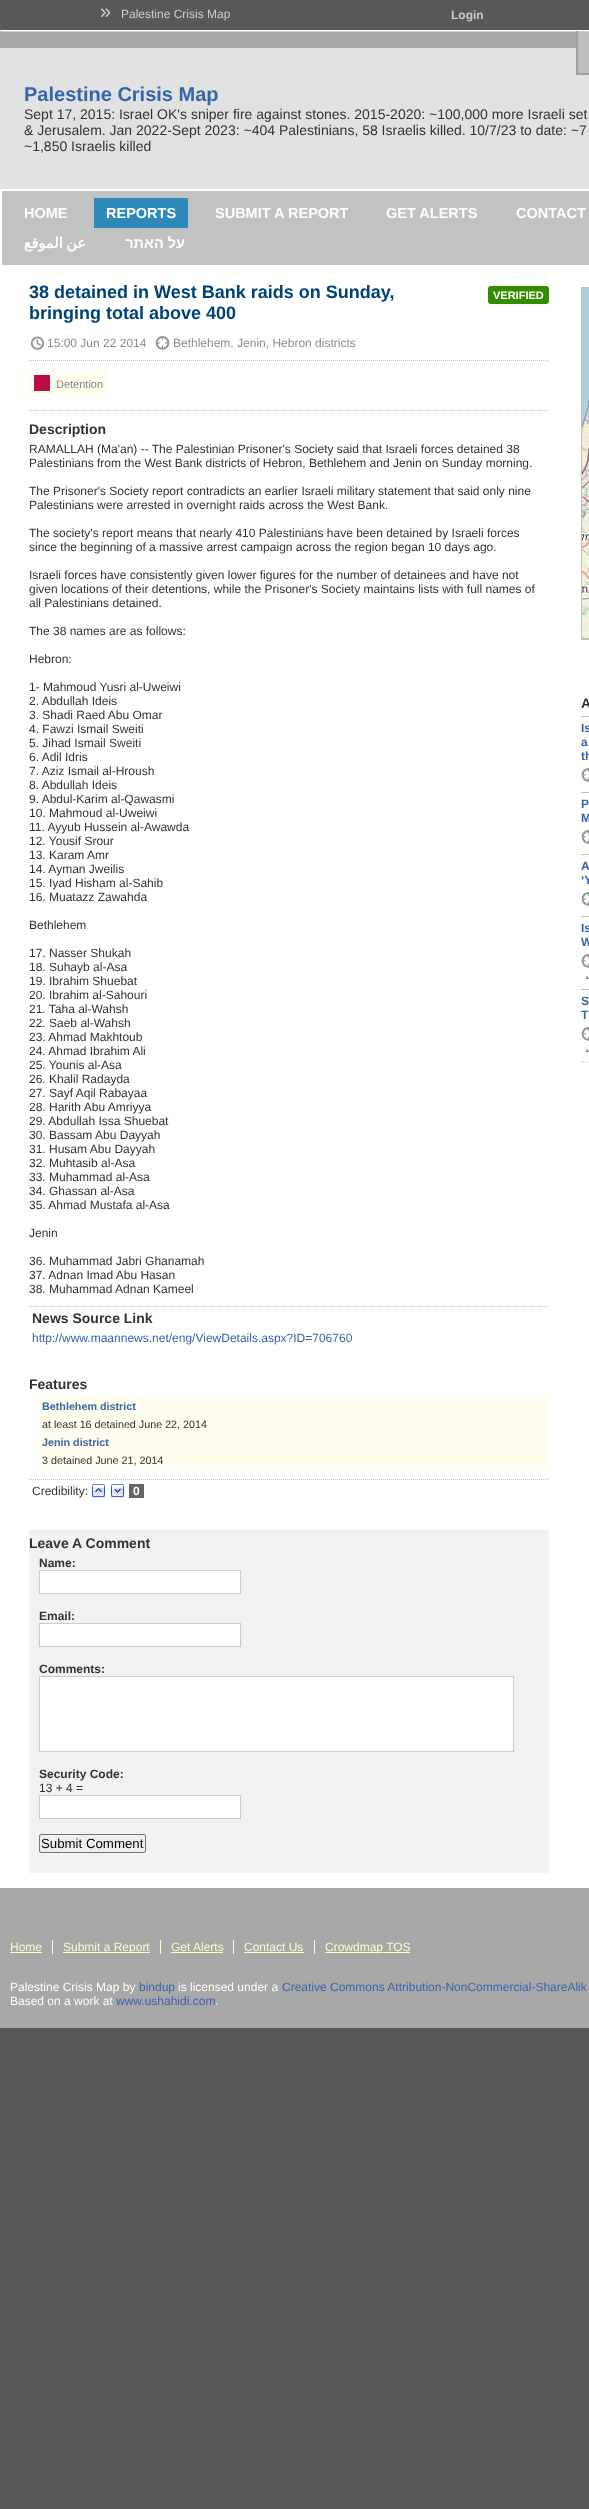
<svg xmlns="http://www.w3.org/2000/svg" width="589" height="2509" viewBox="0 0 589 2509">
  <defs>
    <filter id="blur1" x="-50%" y="-200%" width="200%" height="500%"><feGaussianBlur stdDeviation="0.5"/></filter>
  </defs>
  <rect width="100%" height="100%" fill="#585858"/>
  <image x="0" y="31" width="576" height="17" href="img1.png"/>
  <rect x="1" y="1" width="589" height="31" fill="#cccccc" filter="url(#blur1)"/>
  <rect x="0" y="0" width="589" height="30" fill="#585858"/>
  <rect x="0" y="30" width="589" height="1" fill="#ffffff"/>
  <text x="100" y="18" font-family="Liberation Sans" font-size="20" fill="#cccccc">»</text>
  <text x="121" y="18" font-family="Liberation Sans" font-size="12" fill="#cccccc">Palestine Crisis Map</text>
  <text x="451" y="19" font-family="Liberation Sans" font-size="12" font-weight="bold" fill="#cccccc">Login</text>
  <rect x="0" y="48" width="589" height="141" fill="#e2e2e2"/>
  <rect x="578" y="32" width="11" height="41" fill="#bebebe"/>
  <rect x="576" y="73" width="13" height="2" fill="#9f9f9f"/>
  <rect x="576" y="31" width="2" height="44" fill="#9f9f9f"/>
  <text x="24" y="101" font-family="Liberation Sans" font-size="20" font-weight="bold" fill="#3764aa">Palestine Crisis Map</text>
  <text x="24" y="119" font-family="Liberation Sans" font-size="14" fill="#333333">Sept 17, 2015: Israel OK's sniper fire against stones. 2015-2020: ~100,000 more Israeli set</text>
  <text x="24" y="135" font-family="Liberation Sans" font-size="14" fill="#333333">&amp; Jerusalem. Jan 2022-Sept 2023: ~404 Palestinians, 58 Israelis killed. 10/7/23 to date: ~7</text>
  <text x="24" y="151" font-family="Liberation Sans" font-size="14" fill="#333333">~1,850 Israelis killed</text>
  <rect x="0" y="267" width="589" height="1621" fill="#ffffff"/>
  <rect x="1" y="190" width="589" height="76" fill="#c2c2c2" stroke="#ffffff" stroke-width="2"/>
  <text x="24" y="218" font-family="Liberation Sans" font-size="14.5" font-weight="bold" fill="#ffffff">HOME</text>
  <rect x="94" y="198" width="94" height="30" fill="#2e8ab8"/>
  <text x="106" y="218" font-family="Liberation Sans" font-size="14.5" font-weight="bold" fill="#ffffff">REPORTS</text>
  <text x="215" y="218" font-family="Liberation Sans" font-size="14.5" font-weight="bold" fill="#ffffff">SUBMIT A REPORT</text>
  <text x="386" y="218" font-family="Liberation Sans" font-size="14.5" font-weight="bold" fill="#ffffff">GET ALERTS</text>
  <text x="516" y="218" font-family="Liberation Sans" font-size="14.5" font-weight="bold" fill="#ffffff">CONTACT</text>
  <text x="86" y="248" word-spacing="-1" font-family="DejaVu Sans" font-size="14.5" font-weight="bold" direction="rtl" fill="#ffffff">عن الموقع</text>
  <text x="185" y="248" font-family="Liberation Sans" font-size="14.5" font-weight="bold" direction="rtl" fill="#ffffff">על האתר</text>
  <text x="29" y="298" font-family="Liberation Sans" font-size="18" font-weight="bold" fill="#004276">38 detained in West Bank raids on Sunday,</text>
  <text x="29" y="319" font-family="Liberation Sans" font-size="18" font-weight="bold" fill="#004276">bringing total above 400</text>
  <rect x="488" y="286" width="61" height="18" rx="3" fill="#368c00"/>
  <text x="493" y="299" font-family="Liberation Sans" font-size="11" font-weight="bold" fill="#ffffff">VERIFIED</text>
  <image x="31" y="336" width="13" height="14" href="img2.png"/>
  <text x="47" y="347" font-family="Liberation Sans" font-size="12" fill="#908b88">15:00 Jun 22 2014</text>
  <image x="155" y="336" width="15" height="14" href="img3.png"/>
  <text x="173" y="347" font-family="Liberation Sans" font-size="12" fill="#908b88">Bethlehem, Jenin, Hebron districts</text>
  <path d="M29 360.5H549" fill="none" stroke="#c0c2b8" stroke-dasharray="1 1"/>
  <path d="M29 410.5H549" fill="none" stroke="#c0c2b8" stroke-dasharray="1 1"/>
  <rect x="29" y="371" width="79" height="24" fill="#fffded"/>
  <rect x="34" y="375" width="16" height="16" fill="#bd0b43"/>
  <text x="56" y="388" font-family="Liberation Sans" font-size="11" fill="#828784">Detention</text>
  <text x="29" y="434" font-family="Liberation Sans" font-size="14" font-weight="bold" fill="#333333">Description</text>
  <text x="29" y="453" font-family="Liberation Sans" font-size="12" fill="#333333">RAMALLAH (Ma'an) -- The Palestinian Prisoner's Society said that Israeli forces detained 38</text>
  <text x="29" y="467" font-family="Liberation Sans" font-size="12" fill="#333333">Palestinians from the West Bank districts of Hebron, Bethlehem and Jenin on Sunday morning.</text>
  <text x="29" y="495" font-family="Liberation Sans" font-size="12" fill="#333333">The Prisoner's Society report contradicts an earlier Israeli military statement that said only nine</text>
  <text x="29" y="509" font-family="Liberation Sans" font-size="12" fill="#333333">Palestinians were arrested in overnight raids across the West Bank.</text>
  <text x="29" y="537" font-family="Liberation Sans" font-size="12" fill="#333333">The society's report means that nearly 410 Palestinians have been detained by Israeli forces</text>
  <text x="29" y="551" font-family="Liberation Sans" font-size="12" fill="#333333">since the beginning of a massive arrest campaign across the region began 10 days ago.</text>
  <text x="29" y="579" font-family="Liberation Sans" font-size="12" fill="#333333">Israeli forces have consistently given lower figures for the number of detainees and have not</text>
  <text x="29" y="593" font-family="Liberation Sans" font-size="12" fill="#333333">given locations of their detentions, while the Prisoner's Society maintains lists with full names of</text>
  <text x="29" y="607" font-family="Liberation Sans" font-size="12" fill="#333333">all Palestinians detained.</text>
  <text x="29" y="635" font-family="Liberation Sans" font-size="12" fill="#333333">The 38 names are as follows:</text>
  <text x="29" y="663" font-family="Liberation Sans" font-size="12" fill="#333333">Hebron:</text>
  <text x="29" y="691" font-family="Liberation Sans" font-size="12" fill="#333333">1- Mahmoud Yusri al-Uweiwi</text>
  <text x="29" y="705" font-family="Liberation Sans" font-size="12" fill="#333333">2. Abdullah Ideis</text>
  <text x="29" y="719" font-family="Liberation Sans" font-size="12" fill="#333333">3. Shadi Raed Abu Omar</text>
  <text x="29" y="733" font-family="Liberation Sans" font-size="12" fill="#333333">4. Fawzi Ismail Sweiti</text>
  <text x="29" y="747" font-family="Liberation Sans" font-size="12" fill="#333333">5. Jihad Ismail Sweiti</text>
  <text x="29" y="761" font-family="Liberation Sans" font-size="12" fill="#333333">6. Adil Idris</text>
  <text x="29" y="775" font-family="Liberation Sans" font-size="12" fill="#333333">7. Aziz Ismail al-Hroush</text>
  <text x="29" y="789" font-family="Liberation Sans" font-size="12" fill="#333333">8. Abdullah Ideis</text>
  <text x="29" y="803" font-family="Liberation Sans" font-size="12" fill="#333333">9. Abdul-Karim al-Qawasmi</text>
  <text x="29" y="817" font-family="Liberation Sans" font-size="12" fill="#333333">10. Mahmoud al-Uweiwi</text>
  <text x="29" y="831" font-family="Liberation Sans" font-size="12" fill="#333333">11. Ayyub Hussein al-Awawda</text>
  <text x="29" y="845" font-family="Liberation Sans" font-size="12" fill="#333333">12. Yousif Srour</text>
  <text x="29" y="859" font-family="Liberation Sans" font-size="12" fill="#333333">13. Karam Amr</text>
  <text x="29" y="873" font-family="Liberation Sans" font-size="12" fill="#333333">14. Ayman Jweilis</text>
  <text x="29" y="887" font-family="Liberation Sans" font-size="12" fill="#333333">15. Iyad Hisham al-Sahib</text>
  <text x="29" y="901" font-family="Liberation Sans" font-size="12" fill="#333333">16. Muatazz Zawahda</text>
  <text x="29" y="929" font-family="Liberation Sans" font-size="12" fill="#333333">Bethlehem</text>
  <text x="29" y="957" font-family="Liberation Sans" font-size="12" fill="#333333">17. Nasser Shukah</text>
  <text x="29" y="971" font-family="Liberation Sans" font-size="12" fill="#333333">18. Suhayb al-Asa</text>
  <text x="29" y="985" font-family="Liberation Sans" font-size="12" fill="#333333">19. Ibrahim Shuebat</text>
  <text x="29" y="999" font-family="Liberation Sans" font-size="12" fill="#333333">20. Ibrahim al-Sahouri</text>
  <text x="29" y="1013" font-family="Liberation Sans" font-size="12" fill="#333333">21. Taha al-Wahsh</text>
  <text x="29" y="1027" font-family="Liberation Sans" font-size="12" fill="#333333">22. Saeb al-Wahsh</text>
  <text x="29" y="1041" font-family="Liberation Sans" font-size="12" fill="#333333">23. Ahmad Makhtoub</text>
  <text x="29" y="1055" font-family="Liberation Sans" font-size="12" fill="#333333">24. Ahmad Ibrahim Ali</text>
  <text x="29" y="1069" font-family="Liberation Sans" font-size="12" fill="#333333">25. Younis al-Asa</text>
  <text x="29" y="1083" font-family="Liberation Sans" font-size="12" fill="#333333">26. Khalil Radayda</text>
  <text x="29" y="1097" font-family="Liberation Sans" font-size="12" fill="#333333">27. Sayf Aqil Rabayaa</text>
  <text x="29" y="1111" font-family="Liberation Sans" font-size="12" fill="#333333">28. Harith Abu Amriyya</text>
  <text x="29" y="1125" font-family="Liberation Sans" font-size="12" fill="#333333">29. Abdullah Issa Shuebat</text>
  <text x="29" y="1139" font-family="Liberation Sans" font-size="12" fill="#333333">30. Bassam Abu Dayyah</text>
  <text x="29" y="1153" font-family="Liberation Sans" font-size="12" fill="#333333">31. Husam Abu Dayyah</text>
  <text x="29" y="1167" font-family="Liberation Sans" font-size="12" fill="#333333">32. Muhtasib al-Asa</text>
  <text x="29" y="1181" font-family="Liberation Sans" font-size="12" fill="#333333">33. Muhammad al-Asa</text>
  <text x="29" y="1195" font-family="Liberation Sans" font-size="12" fill="#333333">34. Ghassan al-Asa</text>
  <text x="29" y="1209" font-family="Liberation Sans" font-size="12" fill="#333333">35. Ahmad Mustafa al-Asa</text>
  <text x="29" y="1237" font-family="Liberation Sans" font-size="12" fill="#333333">Jenin</text>
  <text x="29" y="1265" font-family="Liberation Sans" font-size="12" fill="#333333">36. Muhammad Jabri Ghanamah</text>
  <text x="29" y="1279" font-family="Liberation Sans" font-size="12" fill="#333333">37. Adnan Imad Abu Hasan</text>
  <text x="29" y="1293" font-family="Liberation Sans" font-size="12" fill="#333333">38. Muhammad Adnan Kameel</text>
  <path d="M29 1306.5H549" fill="none" stroke="#c0c2b8" stroke-dasharray="1 1"/>
  <text x="32" y="1323" font-family="Liberation Sans" font-size="14" font-weight="bold" fill="#333333">News Source Link</text>
  <text x="32" y="1342" font-family="Liberation Sans" font-size="12" fill="#3764aa">http://www.maannews.net/eng/ViewDetails.aspx?ID=706760</text>
  <text x="29" y="1389" font-family="Liberation Sans" font-size="14" font-weight="bold" fill="#333333">Features</text>
  <rect x="39" y="1397" width="510" height="72" fill="#fffded"/>
  <text x="42" y="1410" font-family="Liberation Sans" font-size="10.75" font-weight="bold" fill="#3764aa">Bethlehem district</text>
  <text x="42" y="1428" font-family="Liberation Sans" font-size="10.75" fill="#333333">at least 16 detained June 22, 2014</text>
  <text x="42" y="1446" font-family="Liberation Sans" font-size="10.75" font-weight="bold" fill="#3764aa">Jenin district</text>
  <text x="42" y="1464" font-family="Liberation Sans" font-size="10.75" fill="#333333">3 detained June 21, 2014</text>
  <path d="M29 1479.5H549" fill="none" stroke="#c0c2b8" stroke-dasharray="1 1"/>
  <text x="32" y="1495" font-family="Liberation Sans" font-size="12" fill="#333333">Credibility:</text>
  <image x="91" y="1484" width="15" height="14" href="img4.png"/>
  <image x="110" y="1484" width="15" height="14" href="img5.png"/>
  <rect x="129" y="1484" width="15" height="14" fill="#666666"/>
  <text x="133" y="1495" font-family="Liberation Sans" font-size="12" font-weight="bold" fill="#ffffff">0</text>
  <rect x="29" y="1530" width="520" height="343" fill="#f2f2f2"/>
  <text x="29" y="1548" font-family="Liberation Sans" font-size="14" font-weight="bold" fill="#333333">Leave A Comment</text>
  <text x="39" y="1567" font-family="Liberation Sans" font-size="12" font-weight="bold" fill="#333333">Name:</text>
  <rect x="39.5" y="1570.5" width="201" height="23" fill="#ffffff" stroke="#cccccc"/>
  <text x="39" y="1620" font-family="Liberation Sans" font-size="12" font-weight="bold" fill="#333333">Email:</text>
  <rect x="39.5" y="1623.5" width="201" height="23" fill="#ffffff" stroke="#cccccc"/>
  <text x="39" y="1673" font-family="Liberation Sans" font-size="12" font-weight="bold" fill="#333333">Comments:</text>
  <rect x="39.5" y="1676.5" width="474" height="75" fill="#ffffff" stroke="#cccccc"/>
  <text x="39" y="1778" font-family="Liberation Sans" font-size="12" font-weight="bold" fill="#333333">Security Code:</text>
  <text x="39" y="1792" font-family="Liberation Sans" font-size="12" fill="#333333">13 + 4 =</text>
  <rect x="39.5" y="1795.5" width="201" height="23" fill="#ffffff" stroke="#cccccc"/>
  <rect x="39.5" y="1834.5" width="106" height="18" rx="1.5" fill="#efefef" stroke="#767676"/>
  <text x="41" y="1848" font-family="Liberation Sans" font-size="13.25" fill="#000000">Submit Comment</text>
  <rect x="581" y="287" width="8" height="1" fill="#c0c2b8"/>
  <rect x="581" y="638" width="8" height="2" fill="#c0c2b8"/>
  <rect x="581" y="287" width="1" height="353" fill="#c0c2b8"/>
  <image x="582" y="288" width="7" height="154" href="img6.png"/>
  <image x="582" y="442" width="7" height="196" href="img7.png"/>
  <path d="M581 1062.5H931" fill="none" stroke="#c0c2b8" stroke-dasharray="1 1"/>
  <text x="581" y="708" font-family="Liberation Sans" font-size="14" font-weight="bold" fill="#333333">A</text>
  <rect x="581" y="716" width="8" height="1" fill="#c0c2b8"/>
  <text x="581" y="732" font-family="Liberation Sans" font-size="12" font-weight="bold" fill="#3764aa">Is</text>
  <text x="581" y="746" font-family="Liberation Sans" font-size="12" font-weight="bold" fill="#3764aa">a</text>
  <text x="581" y="760" font-family="Liberation Sans" font-size="12" font-weight="bold" fill="#3764aa">th</text>
  <image x="581" y="768" width="8" height="14" href="img8.png"/>
  <rect x="581" y="792" width="8" height="1" fill="#c0c2b8"/>
  <text x="581" y="808" font-family="Liberation Sans" font-size="12" font-weight="bold" fill="#3764aa">P</text>
  <text x="581" y="822" font-family="Liberation Sans" font-size="12" font-weight="bold" fill="#3764aa">M</text>
  <image x="581" y="830" width="8" height="14" href="img8.png"/>
  <rect x="581" y="854" width="8" height="1" fill="#c0c2b8"/>
  <text x="581" y="870" font-family="Liberation Sans" font-size="12" font-weight="bold" fill="#3764aa">A</text>
  <text x="581" y="884" font-family="Liberation Sans" font-size="12" font-weight="bold" fill="#3764aa">‘Y</text>
  <image x="581" y="892" width="8" height="14" href="img8.png"/>
  <rect x="581" y="916" width="8" height="1" fill="#c0c2b8"/>
  <text x="581" y="932" font-family="Liberation Sans" font-size="12" font-weight="bold" fill="#3764aa">Is</text>
  <text x="581" y="946" font-family="Liberation Sans" font-size="12" font-weight="bold" fill="#3764aa">W</text>
  <image x="581" y="954" width="8" height="25" href="img9.png"/>
  <rect x="581" y="989" width="8" height="1" fill="#c0c2b8"/>
  <text x="581" y="1005" font-family="Liberation Sans" font-size="12" font-weight="bold" fill="#3764aa">S</text>
  <text x="581" y="1019" font-family="Liberation Sans" font-size="12" font-weight="bold" fill="#3764aa">T</text>
  <image x="581" y="1027" width="8" height="25" href="img9.png"/>
  <rect x="0" y="1888" width="589" height="140" fill="#a8a8a8"/>
  <text x="10" y="1951" font-family="Liberation Sans" font-size="12" fill="#fffdcc">Home</text>
  <rect x="10" y="1952" width="32" height="1" fill="#fffdcc"/>
  <rect x="63" y="1952" width="87" height="1" fill="#fffdcc"/>
  <text x="63" y="1951" font-family="Liberation Sans" font-size="12" fill="#fffdcc">Submit a Report</text>
  <rect x="52" y="1940" width="1" height="14" fill="#fffdcc"/>
  <text x="171" y="1951" font-family="Liberation Sans" font-size="12" fill="#fffdcc">Get Alerts</text>
  <rect x="160" y="1940" width="1" height="14" fill="#fffdcc"/>
  <rect x="171" y="1952" width="52" height="1" fill="#fffdcc"/>
  <text x="244" y="1951" font-family="Liberation Sans" font-size="12" fill="#fffdcc">Contact Us</text>
  <rect x="233" y="1940" width="1" height="14" fill="#fffdcc"/>
  <rect x="244" y="1952" width="60" height="1" fill="#fffdcc"/>
  <rect x="325" y="1952" width="85" height="1" fill="#fffdcc"/>
  <text x="325" y="1951" font-family="Liberation Sans" font-size="12" fill="#fffdcc">Crowdmap TOS</text>
  <rect x="314" y="1940" width="1" height="14" fill="#fffdcc"/>
  <text x="10" y="1991" font-family="Liberation Sans" font-size="12" fill="#ffffff">Palestine Crisis Map by</text>
  <text x="139" y="1991" font-family="Liberation Sans" font-size="12" fill="#3764aa">bindup</text>
  <text x="178" y="1991" font-family="Liberation Sans" font-size="12" fill="#ffffff">is licensed under a</text>
  <text x="282" y="1991" font-family="Liberation Sans" font-size="12" fill="#3764aa">Creative Commons Attribution-NonCommercial-ShareAlik</text>
  <text x="10" y="2005" font-family="Liberation Sans" font-size="12" fill="#ffffff">Based on a work at</text>
  <text x="116" y="2005" font-family="Liberation Sans" font-size="12" fill="#3764aa">www.ushahidi.com</text>
  <text x="215" y="2005" font-family="Liberation Sans" font-size="12" fill="#ffffff">.</text>
</svg>
